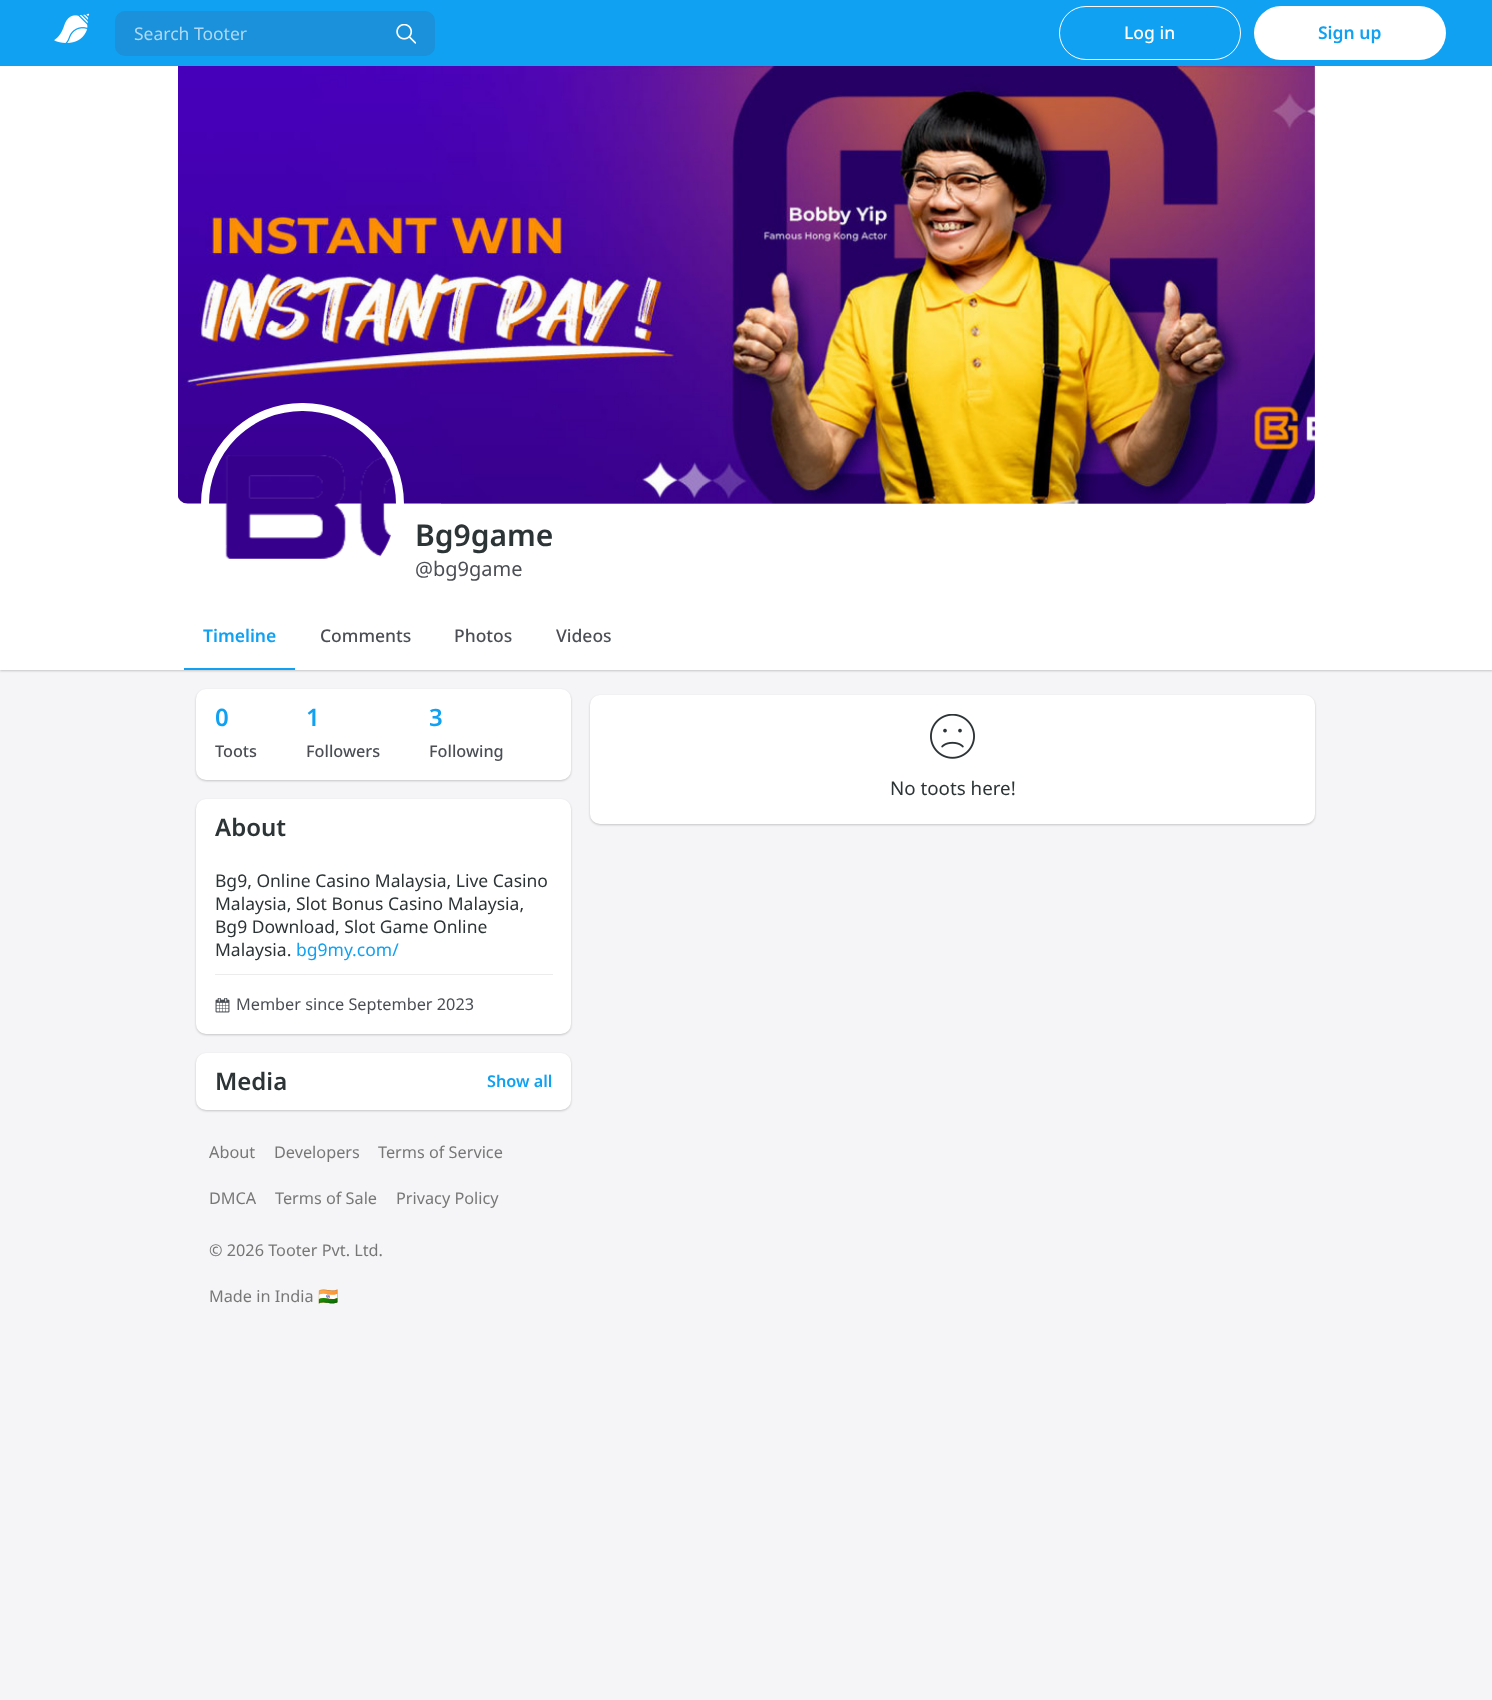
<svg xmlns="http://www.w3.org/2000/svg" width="1492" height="1700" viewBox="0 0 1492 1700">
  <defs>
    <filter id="blur1" x="-50%" y="-200%" width="200%" height="500%"><feGaussianBlur stdDeviation="1"/></filter>
  </defs>
  <rect width="100%" height="100%" fill="#f5f5f7"/>
  <rect x="0" y="68" width="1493" height="603" fill="#000000" fill-opacity="0.2" filter="url(#blur1)"/>
  <rect x="0" y="0" width="1492" height="66" fill="#10a1f2"/>
  <image x="54" y="13" width="36" height="30" href="img1.png"/>
  <rect x="115" y="11" width="320" height="45" rx="10" fill="#1a91da"/>
  <text x="134" y="40" font-family="Noto Sans" font-size="17.5" fill="#afd9f2">Search Tooter</text>
  <image x="396" y="24" width="20" height="20" href="img2.png"/>
  <rect x="1059.5" y="6.5" width="181" height="53" rx="26.5" fill="none" stroke="#ffffff"/>
  <text x="1124" y="39" font-family="Noto Sans" font-size="17.5" font-weight="500" fill="#ffffff">Log in</text>
  <rect x="1254" y="6" width="192" height="54" rx="27" fill="#ffffff"/>
  <text x="1318" y="39" font-family="Noto Sans" font-size="17.5" font-weight="600" fill="#10a1f2">Sign up</text>
  <rect x="0" y="66" width="1492" height="604" fill="#ffffff"/>
  <image x="178" y="66" width="1137" height="438" href="img3.png"/>
  <rect x="205" y="407" width="195" height="194" rx="97" fill="none" stroke="#ffffff" stroke-width="8"/>
  <image x="225" y="455" width="168" height="104" href="img4.png"/>
  <text x="415" y="546" font-family="Noto Sans" font-size="30" font-weight="600" fill="#2d3436">Bg9game</text>
  <text x="415" y="576" font-family="Noto Sans" font-size="20" fill="#4b4f55">@bg9game</text>
  <rect x="184" y="668" width="111" height="2" fill="#10a1f2"/>
  <text x="203" y="642" font-family="Noto Sans" font-size="17.5" font-weight="600" fill="#10a1f2">Timeline</text>
  <text x="320" y="642" font-family="Noto Sans" font-size="17.5" font-weight="500" fill="#4b4f55">Comments</text>
  <text x="454" y="642" font-family="Noto Sans" font-size="17.5" font-weight="500" fill="#4b4f55">Photos</text>
  <text x="556" y="642" font-family="Noto Sans" font-size="17.5" font-weight="500" fill="#4b4f55">Videos</text>
  <rect x="196" y="690" width="375" height="91" rx="10" fill="#000000" fill-opacity="0.2" filter="url(#blur1)"/>
  <rect x="196" y="689" width="375" height="91" rx="10" fill="#ffffff"/>
  <text x="215" y="726" font-family="Noto Sans" font-size="24" font-weight="600" fill="#10a1f2">0</text>
  <text x="215" y="757" font-family="Noto Sans" font-size="16.25" font-weight="500" fill="#4b4f55">Toots</text>
  <text x="306" y="726" font-family="Noto Sans" font-size="24" font-weight="600" fill="#10a1f2">1</text>
  <text x="306" y="757" font-family="Noto Sans" font-size="16.25" font-weight="500" fill="#4b4f55">Followers</text>
  <text x="429" y="726" font-family="Noto Sans" font-size="24" font-weight="600" fill="#10a1f2">3</text>
  <text x="429" y="757" font-family="Noto Sans" font-size="16.25" font-weight="500" fill="#4b4f55">Following</text>
  <rect x="196" y="800" width="375" height="235" rx="10" fill="#000000" fill-opacity="0.2" filter="url(#blur1)"/>
  <rect x="196" y="799" width="375" height="235" rx="10" fill="#ffffff"/>
  <text x="215" y="836" font-family="Noto Sans" font-size="24" font-weight="600" fill="#2d3436">About</text>
  <text x="215" y="887" font-family="Noto Sans" font-size="17.5" fill="#2d3436">Bg9, Online Casino Malaysia, Live Casino</text>
  <text x="215" y="910" font-family="Noto Sans" font-size="17.5" fill="#2d3436">Malaysia, Slot Bonus Casino Malaysia,</text>
  <text x="215" y="933" font-family="Noto Sans" font-size="17.5" fill="#2d3436">Bg9 Download, Slot Game Online</text>
  <text x="215" y="956" font-family="Noto Sans" font-size="17.5" fill="#2d3436">Malaysia.</text>
  <text x="296" y="956" font-family="Noto Sans" font-size="17.5" fill="#10a1f2">bg9my.com/</text>
  <rect x="215" y="974" width="338" height="1" fill="#ececed"/>
  <image x="215" y="998" width="15" height="15" href="img5.png"/>
  <text x="236" y="1010" font-family="Noto Sans" font-size="16.25" fill="#4b4f55">Member since September 2023</text>
  <rect x="196" y="1054" width="375" height="57" rx="10" fill="#000000" fill-opacity="0.2" filter="url(#blur1)"/>
  <rect x="196" y="1053" width="375" height="57" rx="10" fill="#ffffff"/>
  <text x="215" y="1090" font-family="Noto Sans" font-size="24" font-weight="600" fill="#2d3436">Media</text>
  <text x="487" y="1087" font-family="Noto Sans" font-size="16.25" font-weight="600" fill="#10a1f2">Show all</text>
  <text x="209" y="1158" font-family="Noto Sans" font-size="16.25" fill="#777777">About</text>
  <text x="274" y="1158" font-family="Noto Sans" font-size="16.25" fill="#777777">Developers</text>
  <text x="378" y="1158" font-family="Noto Sans" font-size="16.25" fill="#777777">Terms of Service</text>
  <text x="209" y="1204" font-family="Noto Sans" font-size="16.25" fill="#777777">DMCA</text>
  <text x="275" y="1204" font-family="Noto Sans" font-size="16.25" fill="#777777">Terms of Sale</text>
  <text x="396" y="1204" font-family="Noto Sans" font-size="16.25" fill="#777777">Privacy Policy</text>
  <text x="209" y="1256" font-family="Noto Sans" font-size="16.25" fill="#777777">© 2026 Tooter Pvt. Ltd.</text>
  <text x="209" y="1302" font-family="Noto Sans" font-size="16.25" fill="#777777">Made in India</text>
  <text x="318" y="1302" font-family="Noto Color Emoji" font-size="16.25" fill="#777777">🇮🇳</text>
  <rect x="590" y="696" width="725" height="129" rx="10" fill="#000000" fill-opacity="0.2" filter="url(#blur1)"/>
  <rect x="590" y="695" width="725" height="129" rx="10" fill="#ffffff"/>
  <image x="930" y="714" width="45" height="45" href="img6.png"/>
  <text x="890" y="795" font-family="Noto Sans" font-size="18.75" fill="#2d3436">No toots here!</text>
</svg>
